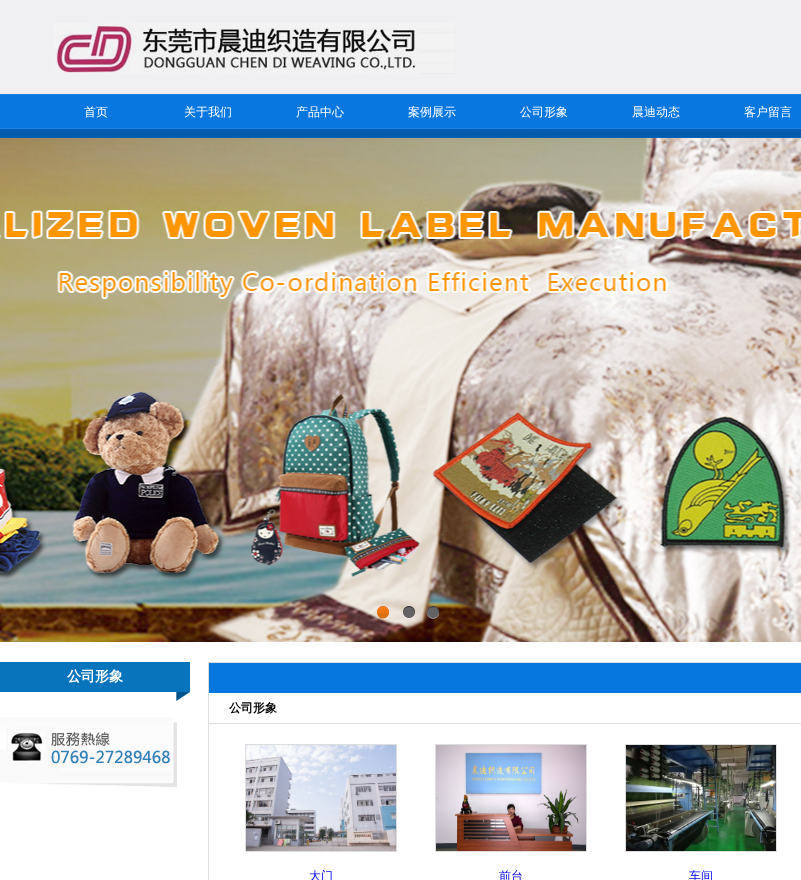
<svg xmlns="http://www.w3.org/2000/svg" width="801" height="880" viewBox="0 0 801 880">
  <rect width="100%" height="100%" fill="#ffffff"/>
  <image x="0" y="0" width="801" height="138" href="img1.png"/>
  <image x="53" y="23" width="402" height="51" href="img2.png"/>
  <text x="84" y="116" font-family="WenQuanYi Zen Hei" font-size="12" font-weight="500" fill="#ffffff">首页</text>
  <text x="184" y="116" font-family="WenQuanYi Zen Hei" font-size="12" font-weight="500" fill="#ffffff">关于我们</text>
  <text x="296" y="116" font-family="WenQuanYi Zen Hei" font-size="12" font-weight="500" fill="#ffffff">产品中心</text>
  <text x="408" y="116" font-family="WenQuanYi Zen Hei" font-size="12" font-weight="500" fill="#ffffff">案例展示</text>
  <text x="520" y="116" font-family="WenQuanYi Zen Hei" font-size="12" font-weight="500" fill="#ffffff">公司形象</text>
  <text x="632" y="116" font-family="WenQuanYi Zen Hei" font-size="12" font-weight="500" fill="#ffffff">晨迪动态</text>
  <text x="744" y="116" font-family="WenQuanYi Zen Hei" font-size="12" font-weight="500" fill="#ffffff">客户留言</text>
  <image x="0" y="138" width="801" height="504" href="img3.png"/>
  <image x="377" y="606" width="14" height="13" href="img4.png"/>
  <image x="402" y="606" width="13" height="13" href="img5.png"/>
  <image x="426" y="606" width="13" height="13" href="img6.png"/>
  <image x="0" y="662" width="190" height="39" href="img7.png"/>
  <text x="67" y="681" font-family="WenQuanYi Zen Hei" font-size="14" font-weight="bold" fill="#ffffff">公司形象</text>
  <image x="0" y="717" width="177" height="71" href="img8.png"/>
  <rect x="208.5" y="662.5" width="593" height="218" fill="none" stroke="#dddddd"/>
  <rect x="209" y="663" width="592" height="30" fill="#0777e0"/>
  <rect x="209" y="723" width="592" height="1" fill="#dddddd"/>
  <text x="229" y="712" font-family="WenQuanYi Zen Hei" font-size="12" font-weight="bold" fill="#000000">公司形象</text>
  <rect x="245.5" y="744.5" width="151" height="107" fill="none" stroke="#dddddd"/>
  <image x="246" y="745" width="150" height="106" href="img9.png"/>
  <text x="309" y="880" font-family="WenQuanYi Zen Hei" font-size="12" font-weight="500" fill="#0000f0">大门</text>
  <rect x="435.5" y="744.5" width="151" height="107" fill="none" stroke="#dddddd"/>
  <image x="436" y="745" width="150" height="106" href="img10.png"/>
  <text x="499" y="880" font-family="WenQuanYi Zen Hei" font-size="12" font-weight="500" fill="#0000f0">前台</text>
  <rect x="625.5" y="744.5" width="151" height="107" fill="none" stroke="#dddddd"/>
  <image x="626" y="745" width="150" height="106" href="img11.png"/>
  <text x="689" y="880" font-family="WenQuanYi Zen Hei" font-size="12" font-weight="500" fill="#0000f0">车间</text>
</svg>
